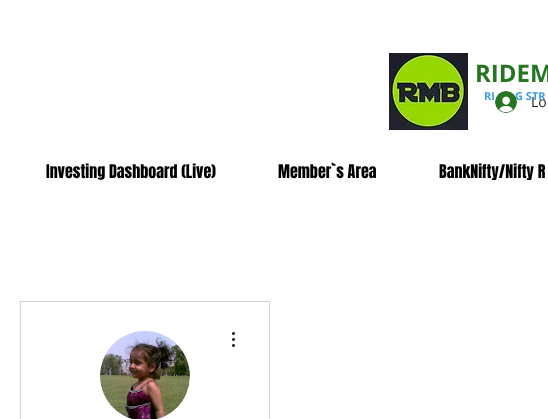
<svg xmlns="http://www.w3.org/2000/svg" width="548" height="419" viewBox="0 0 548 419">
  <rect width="100%" height="100%" fill="#ffffff"/>
  <image x="389" y="53" width="79" height="77" href="img1.png"/>
  <text x="475" y="82" font-family="Open Sans" font-size="24" font-weight="bold" fill="#267521">RIDEM</text>
  <text x="484" y="100" font-family="Open Sans" font-size="11" font-weight="bold" fill="#3d9be9">RI</text>
  <text x="515" y="100" font-family="Open Sans" font-size="11" font-weight="bold" fill="#3d9be9">G STR</text>
  <image x="495" y="91" width="22" height="22" href="img2.png"/>
  <text x="531" y="107" font-family="Open Sans" font-size="14" fill="#181818">Lo</text>
  <text x="46" y="178" font-family="Anton" font-size="16" fill="#000000">Investing Dashboard (Live)</text>
  <text x="278" y="178" font-family="Anton" font-size="16" fill="#000000">Member`s Area</text>
  <text x="439" y="178" font-family="Anton" font-size="16" fill="#000000">BankNifty/Nifty R</text>
  <rect x="20.5" y="301.5" width="249" height="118" fill="none" stroke="#d1d1d1"/>
  <circle cx="145" cy="376" r="45" fill="#d8d8d8"/>
  <image x="100" y="331" width="90" height="88" href="img3.png"/>
  <image x="232" y="332" width="3" height="15" href="img4.png"/>
</svg>
